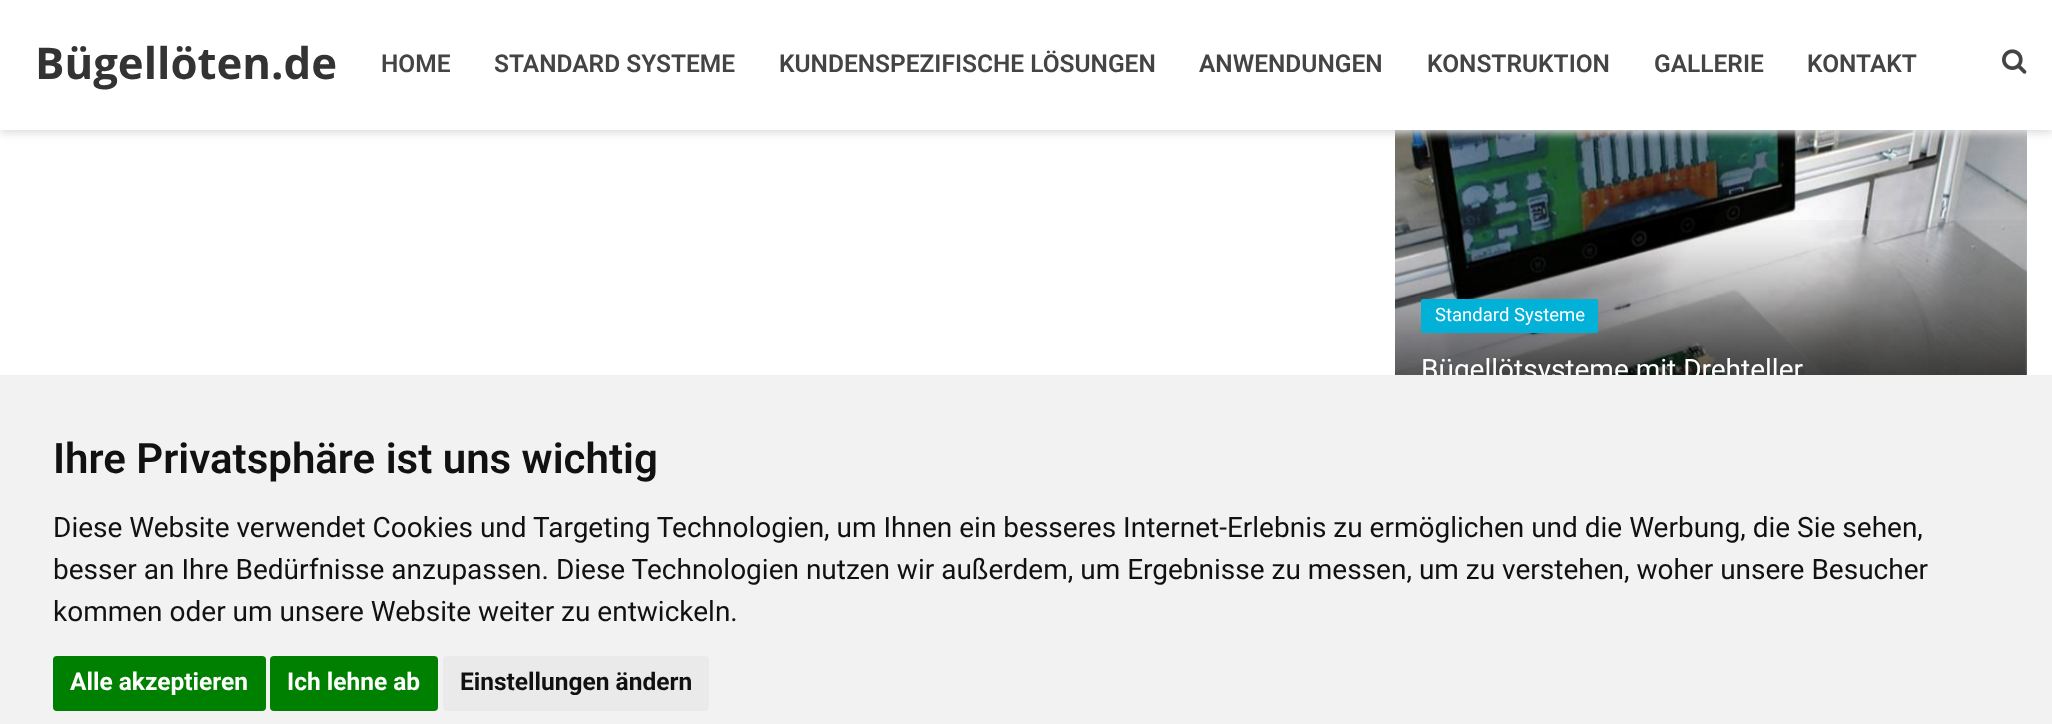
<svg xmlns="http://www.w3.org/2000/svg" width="2052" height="724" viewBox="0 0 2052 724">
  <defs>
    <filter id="blur1" x="-50%" y="-200%" width="200%" height="500%"><feGaussianBlur stdDeviation="4.5"/></filter>
  </defs>
  <rect width="100%" height="100%" fill="#ffffff"/>
  <image x="1395" y="130" width="632" height="245" href="img2.png"/>
  <rect x="0" y="4" width="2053" height="129" fill="#dcdddd" filter="url(#blur1)"/>
  <rect x="0" y="0" width="2052" height="130" fill="#ffffff"/>
  <text x="35" y="79" font-family="Open Sans" font-size="43.75" font-weight="bold" fill="#333333">Bügellöten.de</text>
  <text x="381" y="72" font-family="Roboto" font-size="24.5" font-weight="600" fill="#444444">HOME</text>
  <text x="494" y="72" font-family="Roboto" font-size="24.5" font-weight="600" fill="#444444">STANDARD SYSTEME</text>
  <text x="779" y="72" font-family="Roboto" font-size="24.5" font-weight="600" fill="#444444">KUNDENSPEZIFISCHE LÖSUNGEN</text>
  <text x="1199" y="72" font-family="Roboto" font-size="24.5" font-weight="600" fill="#444444">ANWENDUNGEN</text>
  <text x="1427" y="72" font-family="Roboto" font-size="24.5" font-weight="600" fill="#444444">KONSTRUKTION</text>
  <text x="1654" y="72" font-family="Roboto" font-size="24.5" font-weight="600" fill="#444444">GALLERIE</text>
  <text x="1807" y="72" font-family="Roboto" font-size="24.5" font-weight="600" fill="#444444">KONTAKT</text>
  <image x="2002" y="49" width="25" height="25" href="img1.png"/>
  <image x="1395" y="220" width="632" height="155" href="img3.png"/>
  <rect x="1421" y="299" width="177" height="34" rx="2" fill="#01b1d7"/>
  <text x="1435" y="321" font-family="Roboto" font-size="18.5" fill="#ffffff">Standard Systeme</text>
  <text x="1421" y="379" font-family="Roboto" font-size="28" fill="#ffffff">Bügellötsysteme mit Drehteller</text>
  <rect x="0" y="375" width="2052" height="349" fill="#f2f2f2"/>
  <text x="53" y="473" font-family="Roboto" font-size="42" font-weight="600" fill="#111111">Ihre Privatsphäre ist uns wichtig</text>
  <text x="53" y="537" font-family="Roboto" font-size="28" fill="#111111">Diese Website verwendet Cookies und Targeting Technologien, um Ihnen ein besseres Internet-Erlebnis zu ermöglichen und die Werbung, die Sie sehen,</text>
  <text x="53" y="579" font-family="Roboto" font-size="28" fill="#111111">besser an Ihre Bedürfnisse anzupassen. Diese Technologien nutzen wir außerdem, um Ergebnisse zu messen, um zu verstehen, woher unsere Besucher</text>
  <text x="53" y="621" font-family="Roboto" font-size="28" fill="#111111">kommen oder um unsere Website weiter zu entwickeln.</text>
  <rect x="53" y="656" width="213" height="55" rx="4" fill="#008000"/>
  <text x="70" y="690" font-family="Roboto" font-size="24.5" font-weight="bold" fill="#ffffff">Alle akzeptieren</text>
  <rect x="270" y="656" width="168" height="55" rx="4" fill="#008000"/>
  <text x="287" y="690" font-family="Roboto" font-size="24.5" font-weight="bold" fill="#ffffff">Ich lehne ab</text>
  <rect x="443" y="656" width="266" height="55" rx="4" fill="#eaeaea"/>
  <text x="460" y="690" font-family="Roboto" font-size="24.5" font-weight="bold" fill="#111111">Einstellungen ändern</text>
</svg>
